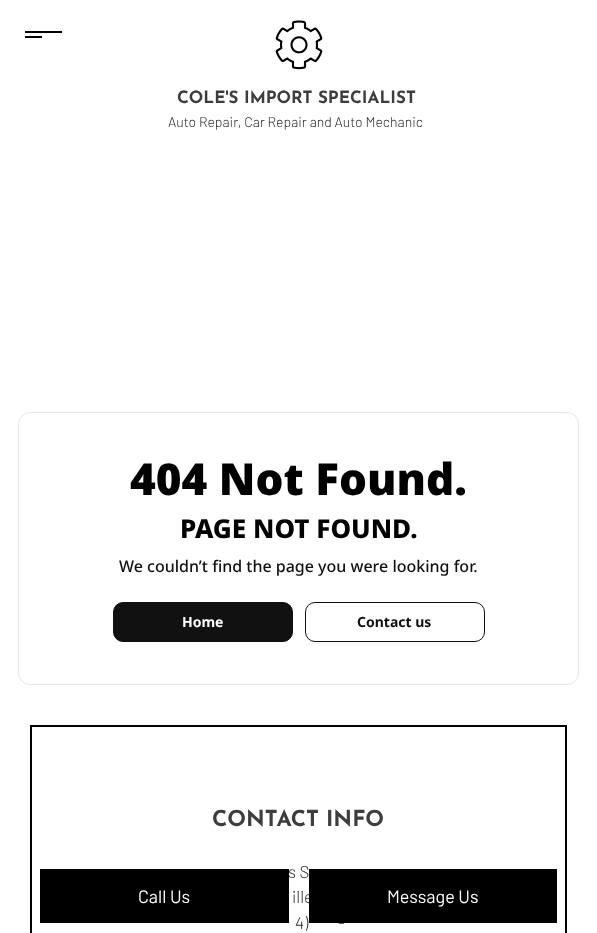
<svg xmlns="http://www.w3.org/2000/svg" width="597" height="933" viewBox="0 0 597 933">
  <rect width="100%" height="100%" fill="#ffffff"/>
  <rect x="25" y="31" width="37" height="2" fill="#000000"/>
  <rect x="25" y="36" width="17" height="2" fill="#000000"/>
  <image x="275" y="20" width="48" height="50" href="img1.png"/>
  <text x="177" y="103" font-family="Josefin Sans" font-size="17" font-weight="bold" fill="#3d3d3d">COLE'S IMPORT SPECIALIST</text>
  <text x="168" y="127" font-family="Barlow" font-size="14" font-weight="300" fill="#2d2d2d">Auto Repair, Car Repair and Auto Mechanic</text>
  <rect x="18.5" y="412.5" width="560" height="272" rx="11.5" fill="none" stroke="#e6e6e6"/>
  <text x="130" y="495" font-family="Noto Sans" font-size="44" font-weight="900" fill="#000000">404 Not Found.</text>
  <text x="180" y="538" font-family="Noto Sans" font-size="26" font-weight="800" fill="#000000">PAGE NOT FOUND.</text>
  <text x="119" y="572" font-family="Noto Sans" font-size="16" font-weight="500" fill="#111111">We couldn’t find the page you were looking for.</text>
  <rect x="113.5" y="602.5" width="179" height="39" rx="9.5" fill="#111111" stroke="#111111"/>
  <text x="182" y="627" font-family="Noto Sans" font-size="14" font-weight="bold" fill="#ffffff">Home</text>
  <rect x="305.5" y="602.5" width="179" height="39" rx="9.5" fill="none" stroke="#111111"/>
  <text x="357" y="627" font-family="Noto Sans" font-size="14" font-weight="bold" fill="#111111">Contact us</text>
  <rect x="30" y="725" width="537" height="2" fill="#000000"/>
  <rect x="565" y="725" width="2" height="208" fill="#000000"/>
  <rect x="30" y="725" width="2" height="208" fill="#000000"/>
  <text x="212" y="826" font-family="Josefin Sans" font-size="22" font-weight="bold" fill="#3d3d3d">CONTACT INFO</text>
  <text x="288" y="878" font-family="Barlow" font-size="17" font-weight="300" fill="#2d2d2d">s S</text>
  <text x="292" y="903" font-family="Barlow" font-size="17" font-weight="300" fill="#2d2d2d">ille</text>
  <text x="295" y="929" font-family="Barlow" font-size="17" font-weight="300" fill="#2d2d2d">4)</text>
  <text x="338" y="929" font-family="Barlow" font-size="17" font-weight="300" fill="#2d2d2d">-</text>
  <rect x="40" y="869" width="249" height="54" fill="#000000"/>
  <text x="138" y="903" font-family="Barlow" font-size="18" fill="#ffffff">Call Us</text>
  <rect x="309" y="869" width="248" height="54" fill="#000000"/>
  <text x="387" y="903" font-family="Barlow" font-size="18" fill="#ffffff">Message Us</text>
</svg>
